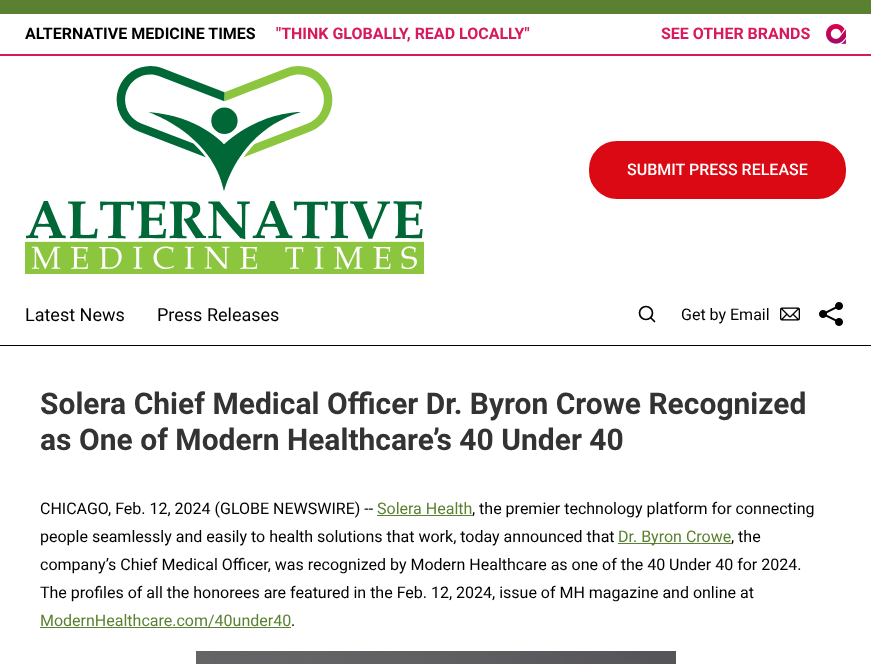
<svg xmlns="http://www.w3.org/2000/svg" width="871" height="664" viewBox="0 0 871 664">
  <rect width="100%" height="100%" fill="#5a8031"/>
  <rect x="0" y="14" width="871" height="40" fill="#ffffff"/>
  <rect x="0" y="54" width="871" height="2" fill="#d8195e"/>
  <text x="25" y="39" font-family="Roboto" font-size="16" font-weight="bold" fill="#000000">ALTERNATIVE MEDICINE TIMES</text>
  <text x="276" y="39" font-family="Roboto" font-size="16" font-weight="bold" fill="#d8195e">"THINK GLOBALLY, READ LOCALLY"</text>
  <text x="661" y="39" font-family="Roboto" font-size="16" font-weight="bold" fill="#d8195e">SEE OTHER BRANDS</text>
  <image x="826" y="24" width="20" height="20" href="img1.png"/>
  <rect x="0" y="56" width="871" height="289" fill="#ffffff"/>
  <rect x="0" y="345" width="871" height="1" fill="#000000"/>
  <image x="25" y="66" width="399" height="208" href="img2.png"/>
  <rect x="590" y="142" width="255" height="56" rx="27" fill="#db0913" stroke="#db0913" stroke-width="2"/>
  <text x="627" y="175" font-family="Roboto" font-size="16" font-weight="500" fill="#ffffff">SUBMIT PRESS RELEASE</text>
  <text x="25" y="321" font-family="Roboto" font-size="18" fill="#000000">Latest News</text>
  <text x="157" y="321" font-family="Roboto" font-size="18" fill="#000000">Press Releases</text>
  <circle cx="646" cy="313" r="6.5" fill="none" stroke="#000000" stroke-width="1.7"/>
  <path d="M654.5 321.5L651 318" fill="none" stroke="#000000" stroke-width="1.7" stroke-linecap="round" stroke-linejoin="round"/>
  <text x="681" y="320" font-family="Roboto" font-size="16" fill="#000000">Get by Email</text>
  <image x="780" y="307" width="20" height="14" href="img3.png"/>
  <image x="819" y="302" width="24" height="24" href="img4.png"/>
  <rect x="0" y="346" width="871" height="318" fill="#ffffff"/>
  <text x="40" y="414" font-family="Roboto" font-size="30" font-weight="bold" fill="#333333">Solera Chief Medical Officer Dr. Byron Crowe Recognized</text>
  <text x="40" y="450" font-family="Roboto" font-size="30" font-weight="bold" fill="#333333">as One of Modern Healthcare’s 40 Under 40</text>
  <text x="40" y="514" font-family="Roboto" font-size="16" fill="#000000">CHICAGO, Feb. 12, 2024 (GLOBE NEWSWIRE) --</text>
  <text x="377" y="514" font-family="Roboto" font-size="16" fill="#5a8031">Solera Health</text>
  <rect x="377" y="515" width="95" height="1" fill="#5a8031"/>
  <text x="472" y="514" font-family="Roboto" font-size="16" fill="#000000">, the premier technology platform for connecting</text>
  <text x="40" y="542" font-family="Roboto" font-size="16" fill="#000000">people seamlessly and easily to health solutions that work, today announced that</text>
  <rect x="618" y="543" width="113" height="1" fill="#5a8031"/>
  <text x="618" y="542" font-family="Roboto" font-size="16" fill="#5a8031">Dr. Byron Crowe</text>
  <text x="731" y="542" font-family="Roboto" font-size="16" fill="#000000">, the</text>
  <text x="40" y="570" font-family="Roboto" font-size="16" fill="#000000">company’s Chief Medical Officer, was recognized by Modern Healthcare as one of the 40 Under 40 for 2024.</text>
  <text x="40" y="598" font-family="Roboto" font-size="16" fill="#000000">The profiles of all the honorees are featured in the Feb. 12, 2024, issue of MH magazine and online at</text>
  <text x="40" y="626" font-family="Roboto" font-size="16" fill="#5a8031">ModernHealthcare.com/40under40</text>
  <rect x="40" y="627" width="251" height="1" fill="#5a8031"/>
  <text x="291" y="626" font-family="Roboto" font-size="16" fill="#000000">.</text>
  <image x="196" y="651" width="480" height="13" href="img5.png"/>
</svg>
